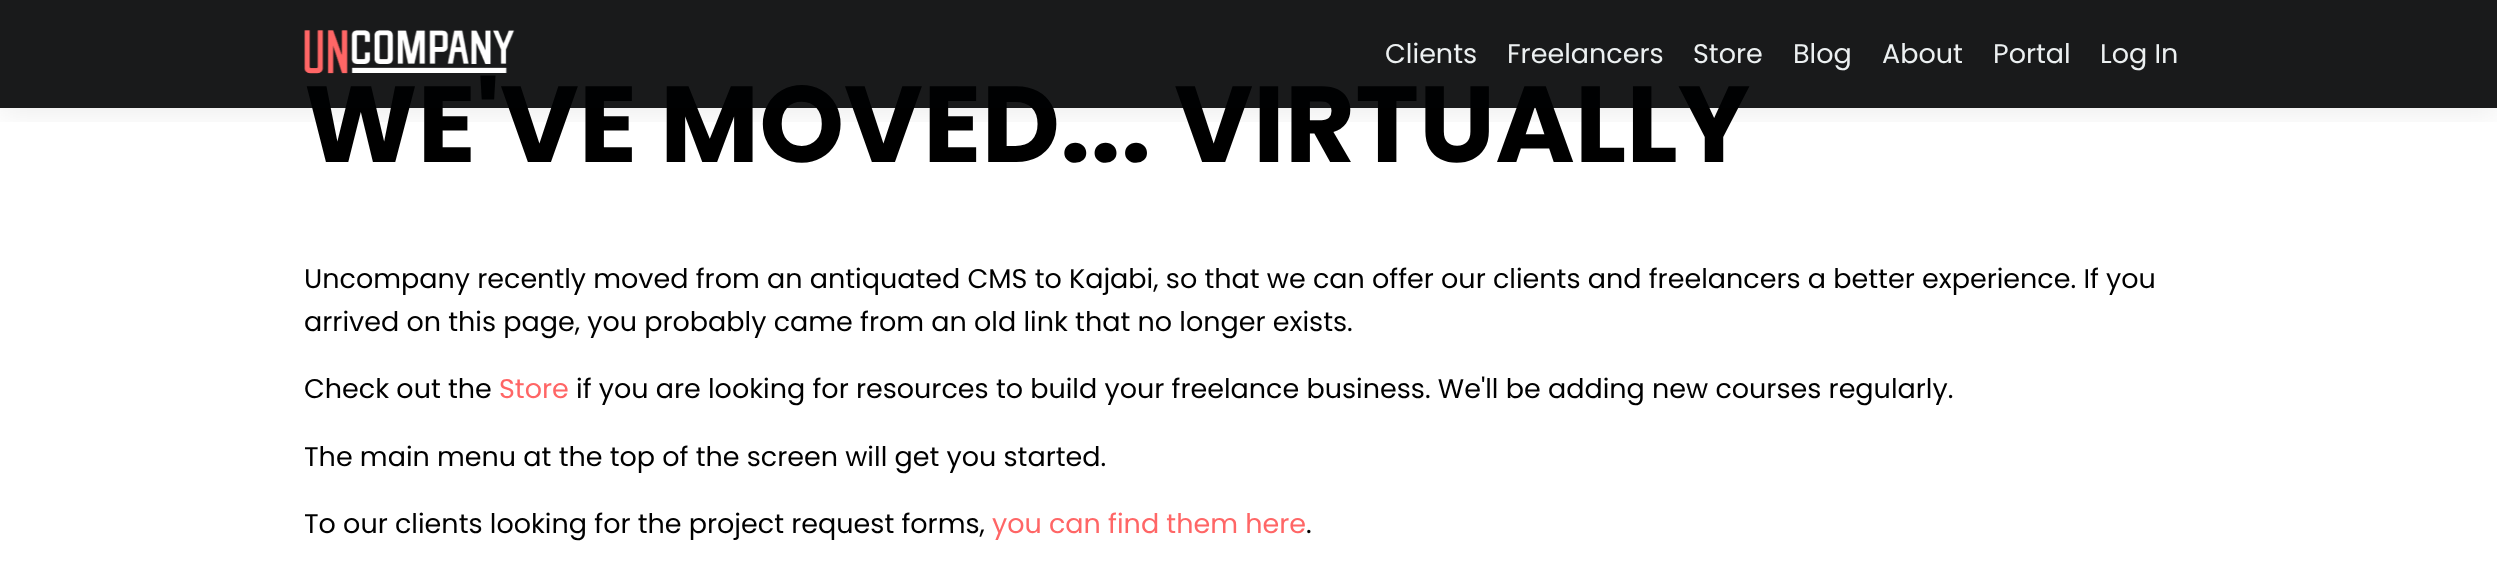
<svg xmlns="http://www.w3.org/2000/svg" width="2497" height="584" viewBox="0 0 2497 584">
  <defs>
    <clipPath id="clip1"><rect x="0" y="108" width="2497" height="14"/></clipPath>
    <filter id="blur1" x="-50%" y="-200%" width="200%" height="500%"><feGaussianBlur stdDeviation="15"/></filter>
    <clipPath id="clip2"><rect x="305" y="71" width="1890" height="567"/></clipPath>
  </defs>
  <rect width="100%" height="100%" fill="#ffffff"/>
  <g clip-path="url(#clip1)">
    <rect x="0" y="6" width="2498" height="108" fill="#000000" fill-opacity="0.07" filter="url(#blur1)"/>
  </g>
  <text x="304" y="162" font-family="Poppins" font-size="108" font-weight="bold" fill="#000000">WE'VE MOVED... VIRTUALLY</text>
  <rect x="0" y="0" width="2497" height="108" fill="#000102" fill-opacity="0.9"/>
  <image x="304" y="30" width="211" height="44" href="img1.png"/>
  <text x="1385" y="63" font-family="Poppins" font-size="27" fill="#ecf0f1">Clients</text>
  <text x="1507" y="63" font-family="Poppins" font-size="27" fill="#ecf0f1">Freelancers</text>
  <text x="1693" y="63" font-family="Poppins" font-size="27" fill="#ecf0f1">Store</text>
  <text x="1793" y="63" font-family="Poppins" font-size="27" fill="#ecf0f1">Blog</text>
  <text x="1882" y="63" font-family="Poppins" font-size="27" fill="#ecf0f1">About</text>
  <text x="1993" y="63" font-family="Poppins" font-size="27" fill="#ecf0f1">Portal</text>
  <text x="2100" y="63" font-family="Poppins" font-size="27" fill="#ecf0f1">Log In</text>
  <text x="304" y="288" font-family="Poppins" font-size="27" fill="#000000">Uncompany recently moved from an antiquated CMS to Kajabi, so that we can offer our clients and freelancers a better experience. If you</text>
  <text x="304" y="331" font-family="Poppins" font-size="27" fill="#000000">arrived on this page, you probably came from an old link that no longer exists.</text>
  <text x="304" y="398" font-family="Poppins" font-size="27" fill="#000000">Check out the</text>
  <text x="499" y="398" font-family="Poppins" font-size="27" fill="#ff6666">Store</text>
  <text x="576" y="398" font-family="Poppins" font-size="27" fill="#000000">if you are looking for resources to build your freelance business. We'll be adding new courses regularly.</text>
  <g clip-path="url(#clip2)">
    <text x="304" y="466" font-family="Poppins" font-size="27" fill="#000000">The main menu at the top of the screen will get you started.</text>
    <text x="304" y="533" font-family="Poppins" font-size="27" fill="#000000">To our clients looking for the project request forms,</text>
  </g>
  <text x="992" y="533" font-family="Poppins" font-size="27" fill="#ff6666">you can find them here</text>
  <text x="1306" y="533" font-family="Poppins" font-size="27" fill="#000000">.</text>
</svg>
